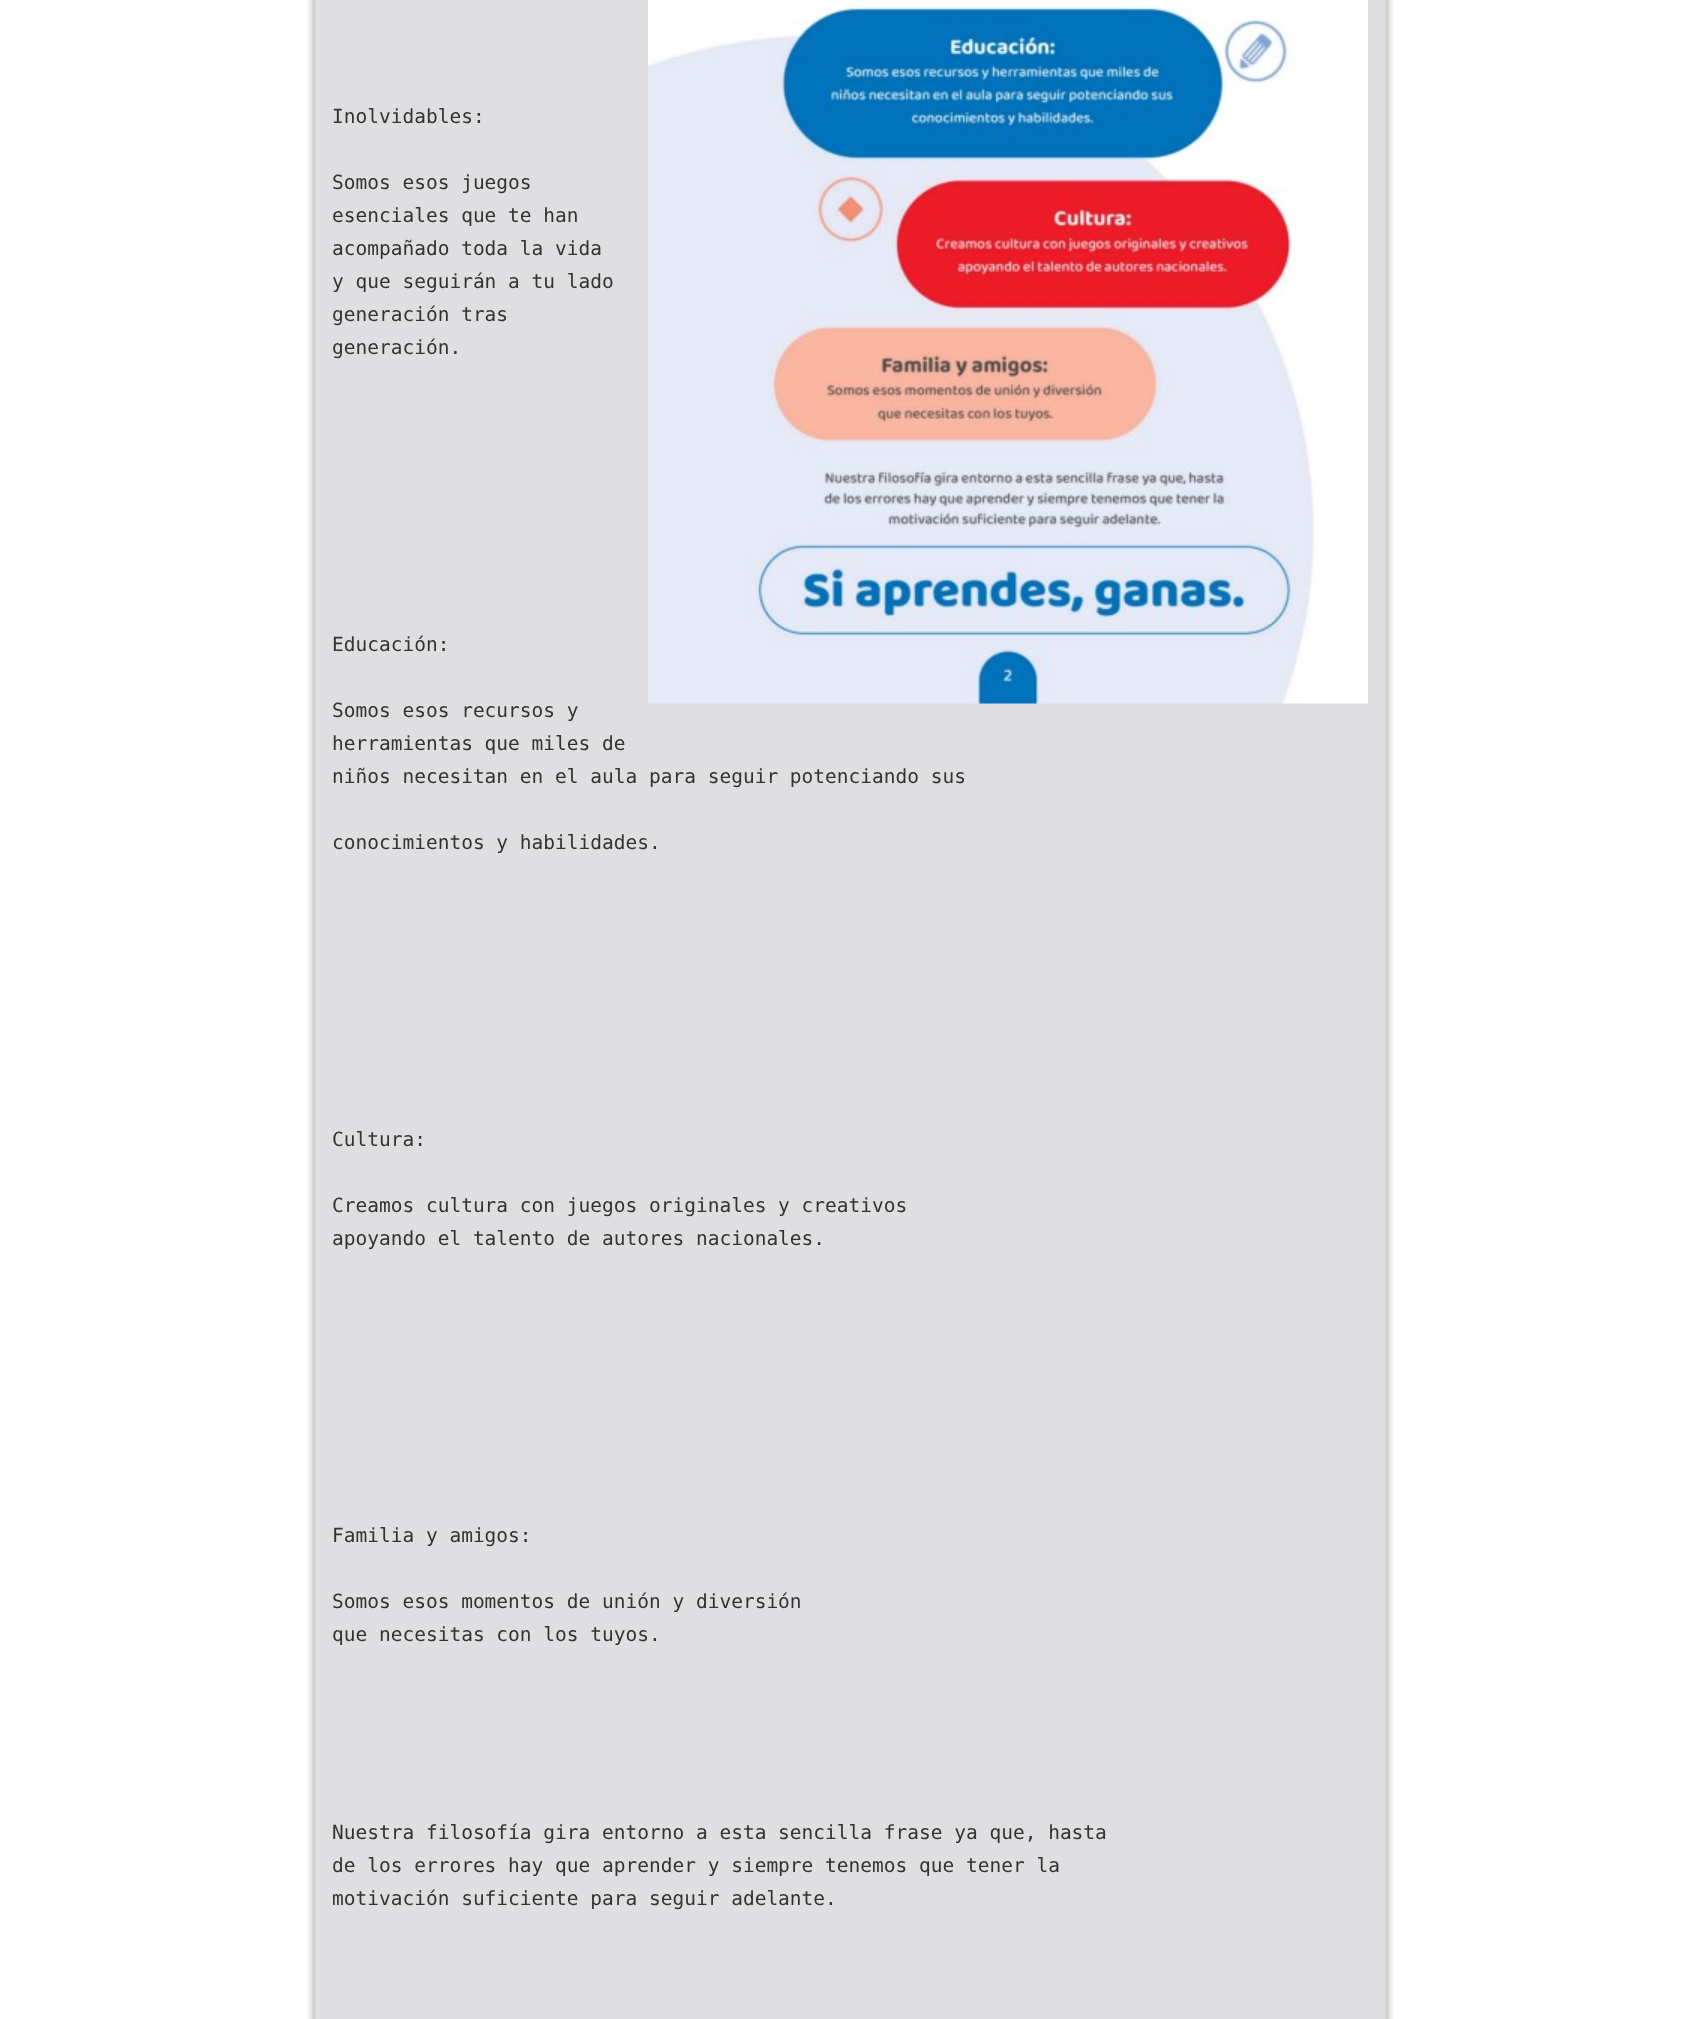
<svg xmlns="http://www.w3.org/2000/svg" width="1699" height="2019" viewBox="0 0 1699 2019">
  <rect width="100%" height="100%" fill="#ffffff"/>
  <image x="307" y="0" width="1087" height="2019" href="img1.png"/>
  <image x="648" y="0" width="720" height="704" href="img2.png"/>
  <text x="332" y="123" font-family="DejaVu Sans Mono" font-size="19.5" fill="#333333">Inolvidables:</text>
  <text x="332" y="189" font-family="DejaVu Sans Mono" font-size="19.5" fill="#333333">Somos esos juegos</text>
  <text x="332" y="222" font-family="DejaVu Sans Mono" font-size="19.5" fill="#333333">esenciales que te han</text>
  <text x="332" y="255" font-family="DejaVu Sans Mono" font-size="19.5" fill="#333333">acompañado toda la vida</text>
  <text x="332" y="288" font-family="DejaVu Sans Mono" font-size="19.5" fill="#333333">y que seguirán a tu lado</text>
  <text x="332" y="321" font-family="DejaVu Sans Mono" font-size="19.5" fill="#333333">generación tras</text>
  <text x="332" y="354" font-family="DejaVu Sans Mono" font-size="19.5" fill="#333333">generación.</text>
  <text x="332" y="651" font-family="DejaVu Sans Mono" font-size="19.5" fill="#333333">Educación:</text>
  <text x="332" y="717" font-family="DejaVu Sans Mono" font-size="19.5" fill="#333333">Somos esos recursos y</text>
  <text x="332" y="750" font-family="DejaVu Sans Mono" font-size="19.5" fill="#333333">herramientas que miles de</text>
  <text x="332" y="783" font-family="DejaVu Sans Mono" font-size="19.5" fill="#333333">niños necesitan en el aula para seguir potenciando sus</text>
  <text x="332" y="849" font-family="DejaVu Sans Mono" font-size="19.5" fill="#333333">conocimientos y habilidades.</text>
  <text x="332" y="1146" font-family="DejaVu Sans Mono" font-size="19.5" fill="#333333">Cultura:</text>
  <text x="332" y="1212" font-family="DejaVu Sans Mono" font-size="19.5" fill="#333333">Creamos cultura con juegos originales y creativos</text>
  <text x="332" y="1245" font-family="DejaVu Sans Mono" font-size="19.5" fill="#333333">apoyando el talento de autores nacionales.</text>
  <text x="332" y="1542" font-family="DejaVu Sans Mono" font-size="19.5" fill="#333333">Familia y amigos:</text>
  <text x="332" y="1608" font-family="DejaVu Sans Mono" font-size="19.5" fill="#333333">Somos esos momentos de unión y diversión</text>
  <text x="332" y="1641" font-family="DejaVu Sans Mono" font-size="19.5" fill="#333333">que necesitas con los tuyos.</text>
  <text x="332" y="1839" font-family="DejaVu Sans Mono" font-size="19.5" fill="#333333">Nuestra filosofía gira entorno a esta sencilla frase ya que, hasta</text>
  <text x="332" y="1872" font-family="DejaVu Sans Mono" font-size="19.5" fill="#333333">de los errores hay que aprender y siempre tenemos que tener la</text>
  <text x="332" y="1905" font-family="DejaVu Sans Mono" font-size="19.5" fill="#333333">motivación suficiente para seguir adelante.</text>
</svg>
